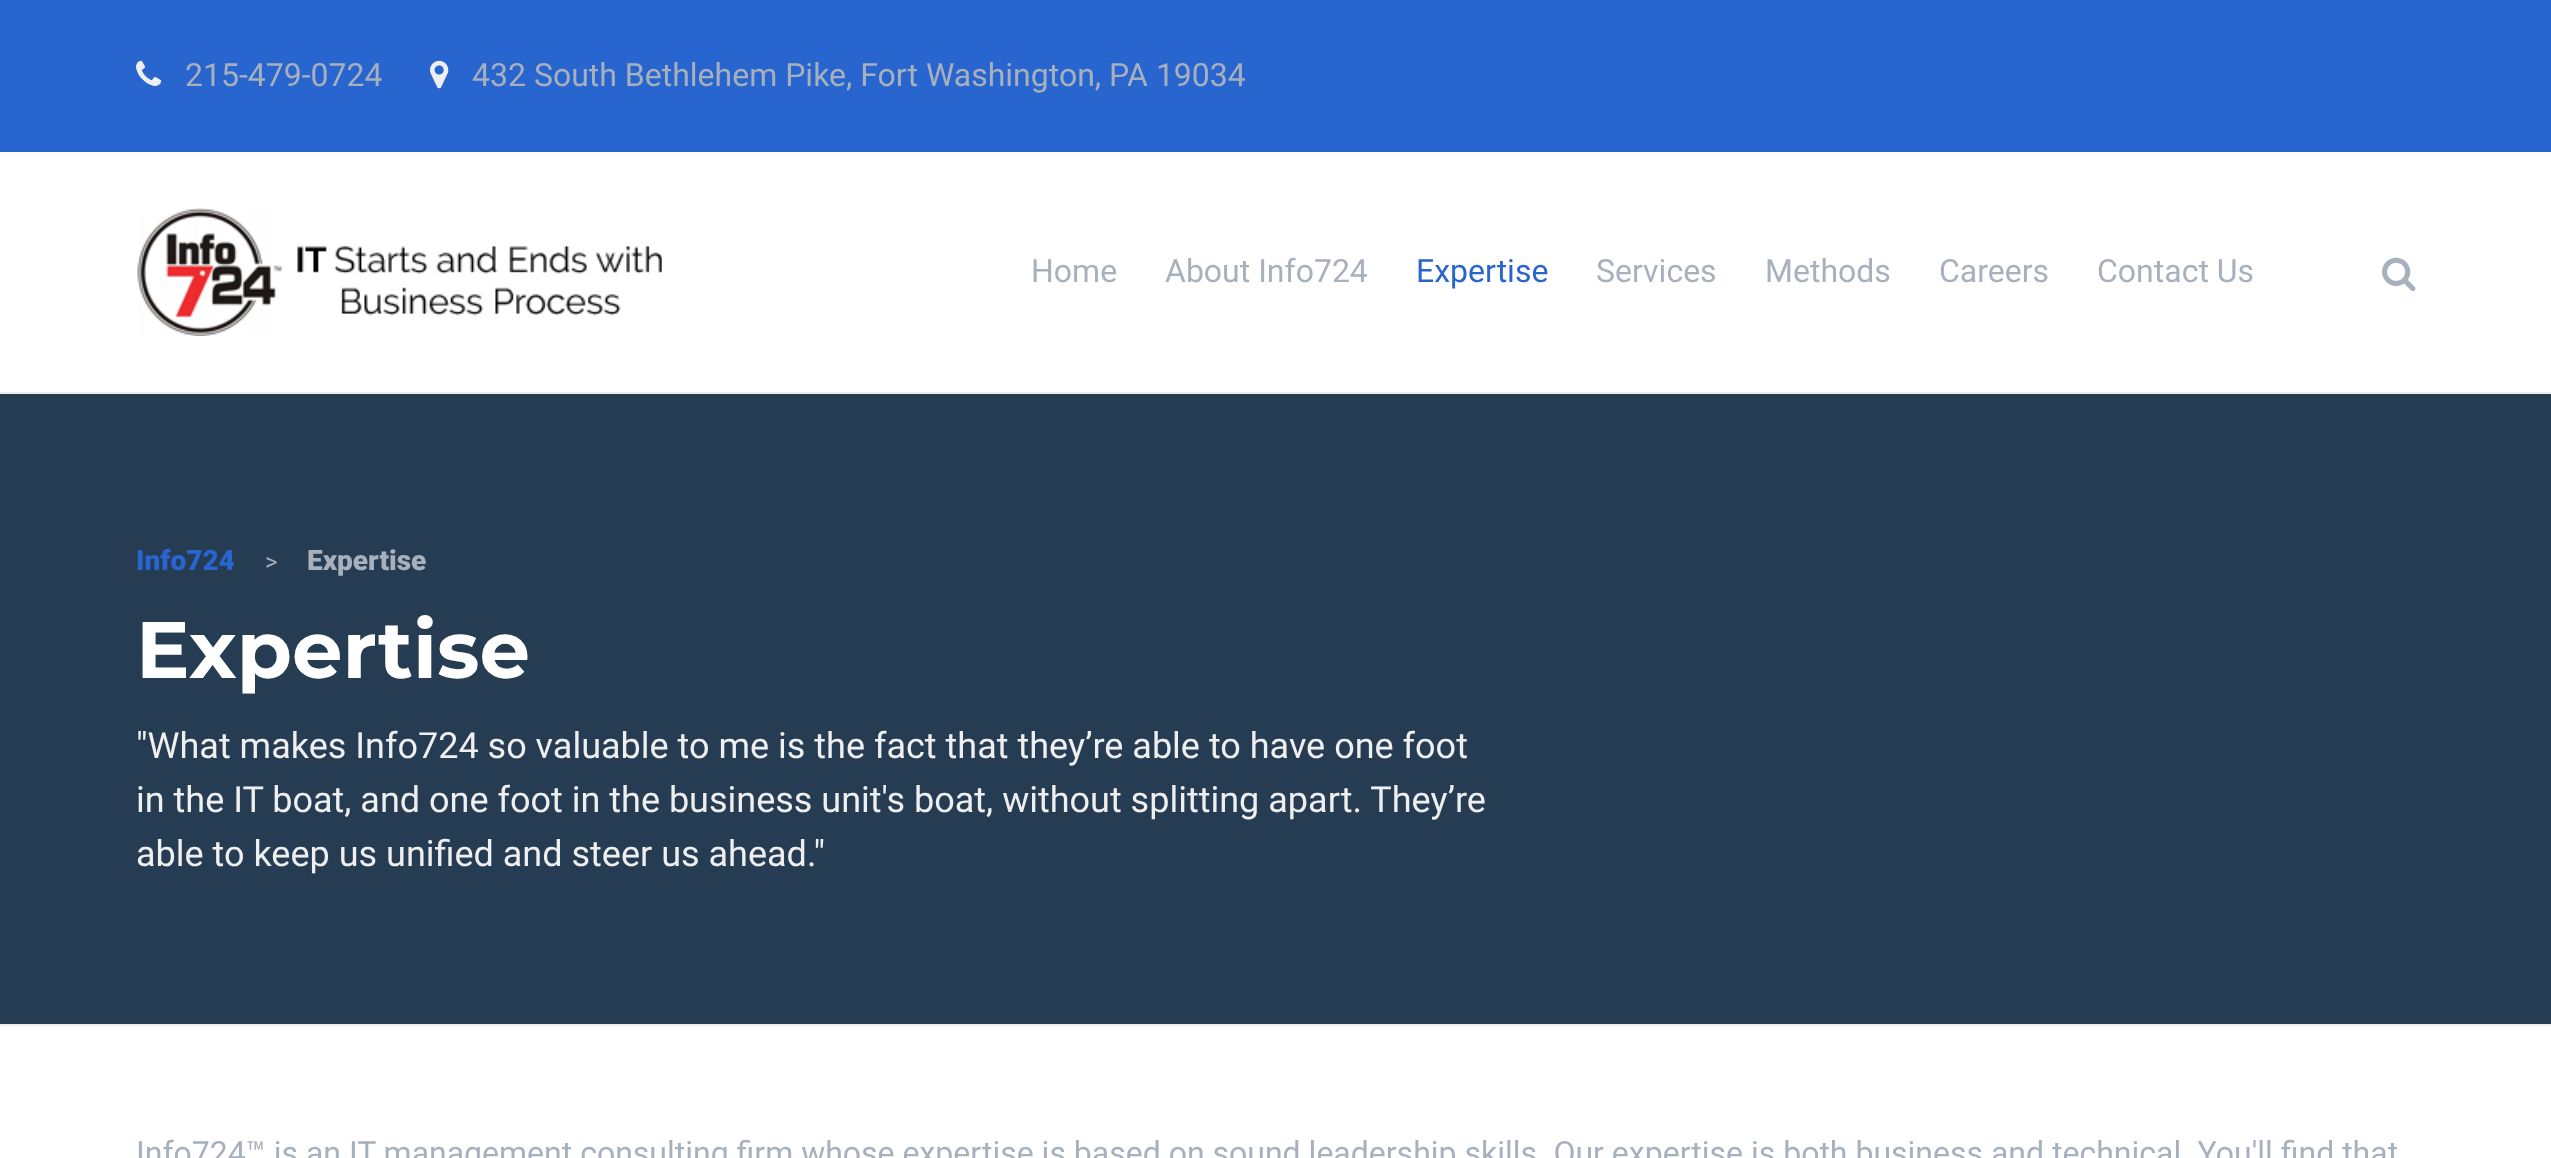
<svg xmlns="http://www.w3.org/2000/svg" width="2551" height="1158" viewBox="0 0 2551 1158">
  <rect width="100%" height="100%" fill="#ffffff"/>
  <rect x="0" y="0" width="2551" height="152" fill="#2965ce"/>
  <image x="136" y="60" width="26" height="26" href="img1.png"/>
  <text x="185" y="86" font-family="Roboto" font-size="32" fill="#a7b0bd">215-479-0724</text>
  <image x="430" y="60" width="19" height="29" href="img2.png"/>
  <text x="472" y="86" font-family="Roboto" font-size="32" fill="#a7b0bd">432 South Bethlehem Pike, Fort Washington, PA 19034</text>
  <image x="137" y="208" width="525" height="128" href="img3.png"/>
  <text x="1031" y="282" font-family="Roboto" font-size="32" fill="#a7b0bd">Home</text>
  <text x="1165" y="282" font-family="Roboto" font-size="32" fill="#a7b0bd">About Info724</text>
  <text x="1416" y="282" font-family="Roboto" font-size="32" fill="#2965ce">Expertise</text>
  <text x="1596" y="282" font-family="Roboto" font-size="32" fill="#a7b0bd">Services</text>
  <text x="1765" y="282" font-family="Roboto" font-size="32" fill="#a7b0bd">Methods</text>
  <text x="1939" y="282" font-family="Roboto" font-size="32" fill="#a7b0bd">Careers</text>
  <text x="2097" y="282" font-family="Roboto" font-size="32" fill="#a7b0bd">Contact Us</text>
  <image x="2382" y="257" width="34" height="35" href="img4.png"/>
  <rect x="0" y="394" width="2551" height="630" fill="#263c53"/>
  <rect x="0" y="392" width="2551" height="2" fill="#eeeeee"/>
  <rect x="0" y="1024" width="2551" height="2" fill="#eeeeee"/>
  <text x="136" y="570" font-family="Roboto" font-size="28" font-weight="900" fill="#2965ce">Info724</text>
  <text x="265" y="570" font-family="Roboto" font-size="24" fill="#a7b0bd">&gt;</text>
  <text x="307" y="570" font-family="Roboto" font-size="28" font-weight="900" fill="#a7b0bd">Expertise</text>
  <text x="136" y="678" font-family="Montserrat" font-size="80" font-weight="bold" fill="#ffffff">Expertise</text>
  <text x="136" y="758" font-family="Roboto" font-size="36" fill="#efefef">"What makes Info724 so valuable to me is the fact that they’re able to have one foot</text>
  <text x="136" y="812" font-family="Roboto" font-size="36" fill="#efefef">in the IT boat, and one foot in the business unit's boat, without splitting apart. They’re</text>
  <text x="136" y="866" font-family="Roboto" font-size="36" fill="#efefef">able to keep us unified and steer us ahead."</text>
  <text x="136" y="1164" font-family="Roboto" font-size="32" fill="#a7b0bd">Info724™ is an IT management consulting firm whose expertise is based on sound leadership skills. Our expertise is both business and technical. You'll find that</text>
</svg>
